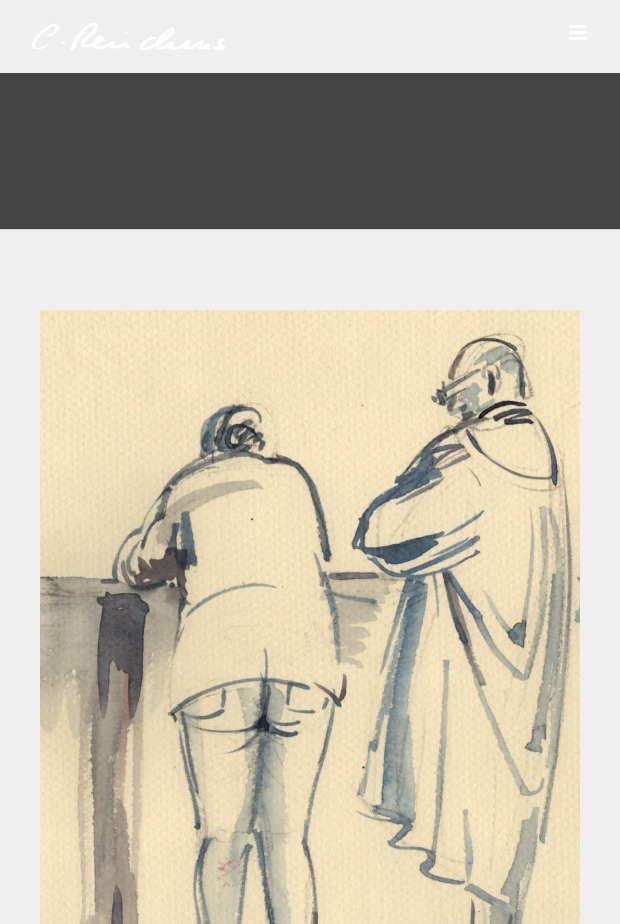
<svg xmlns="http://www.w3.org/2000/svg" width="620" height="924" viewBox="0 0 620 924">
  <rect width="100%" height="100%" fill="#efefef"/>
  <image x="31" y="22" width="195" height="29" href="img1.png"/>
  <image x="569" y="25" width="18" height="15" href="img2.png"/>
  <rect x="0" y="73" width="620" height="156" fill="#444444"/>
  <rect x="0" y="229" width="620" height="1" fill="#d2d3d4"/>
  <image x="40" y="310" width="540" height="614" href="img3.png"/>
</svg>
